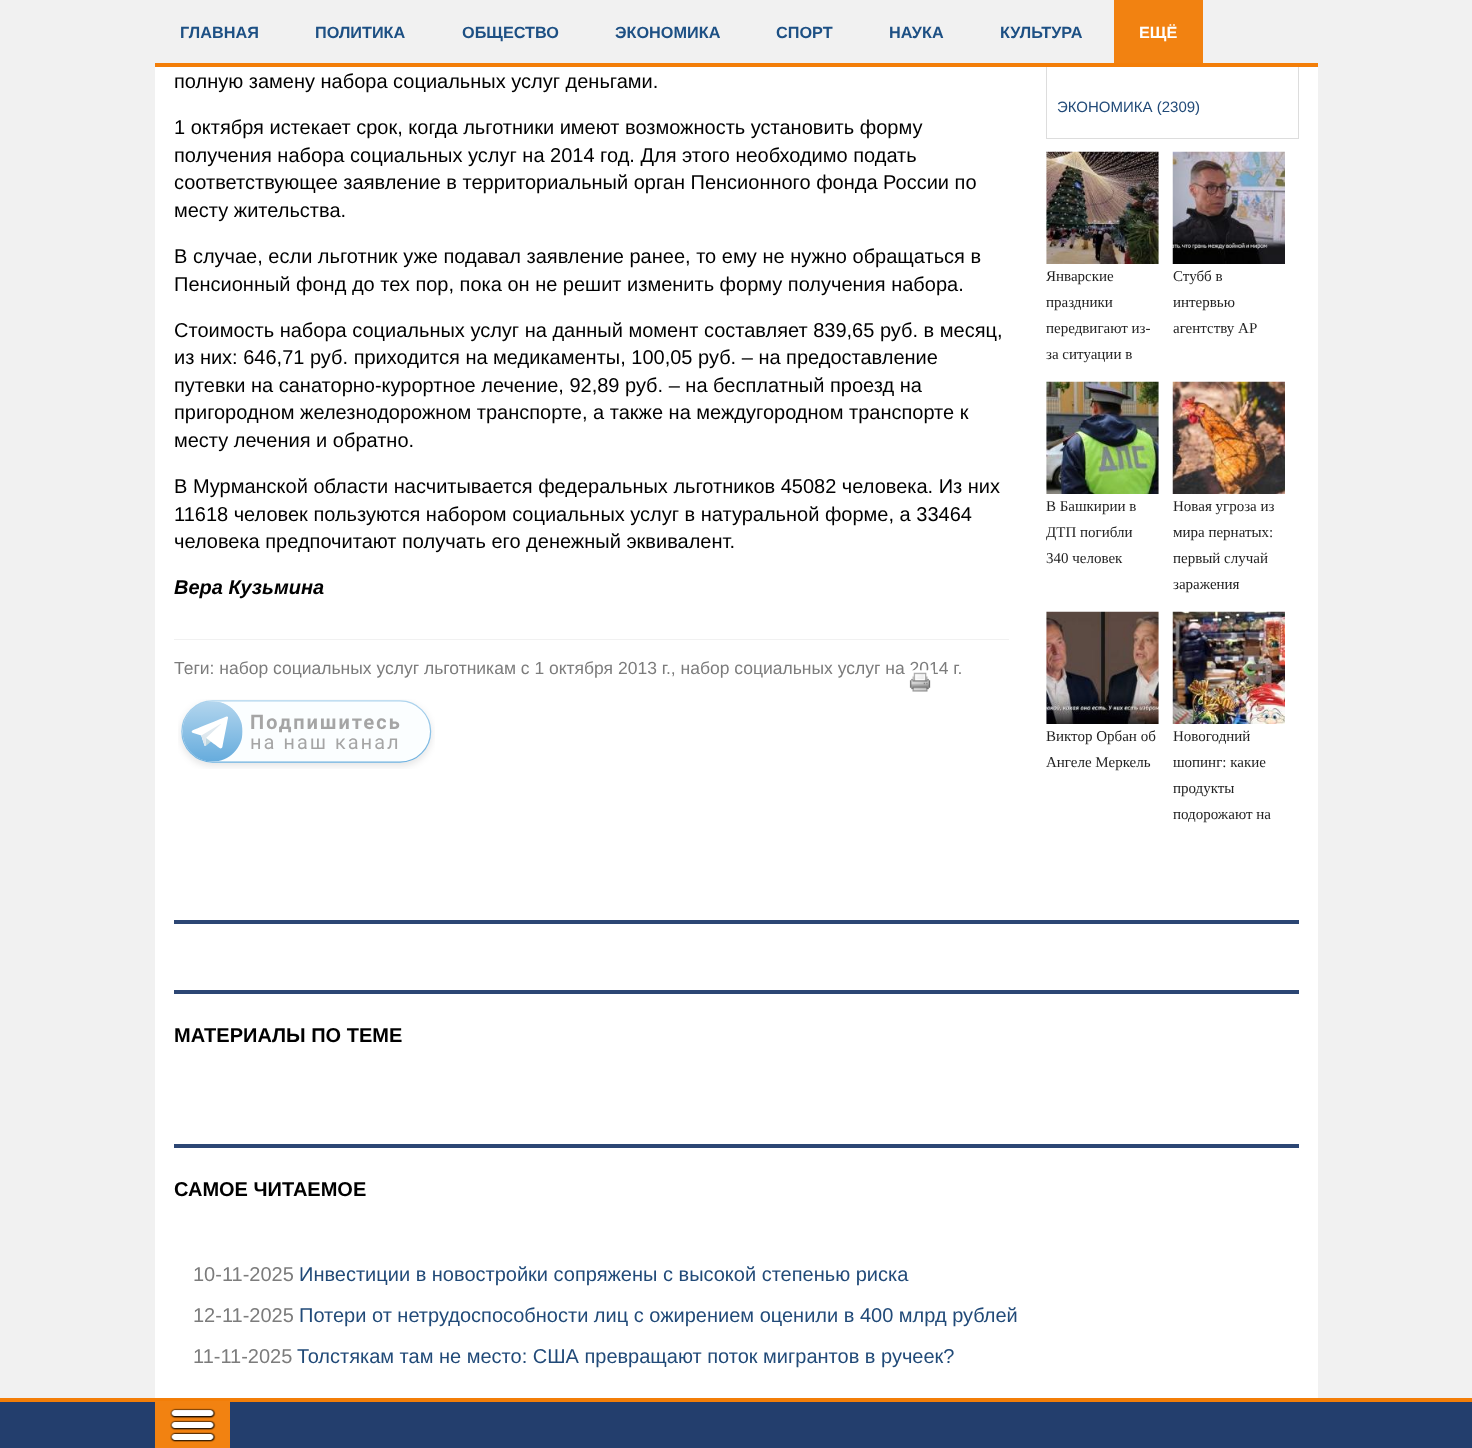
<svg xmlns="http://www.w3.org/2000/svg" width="1472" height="1448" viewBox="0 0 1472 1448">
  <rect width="100%" height="100%" fill="#f1f1f1"/>
  <rect x="155" y="67" width="1163" height="1331" fill="#ffffff"/>
  <rect x="1046.5" y="-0.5" width="252" height="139" fill="none" stroke="#dddddd"/>
  <rect x="1046" y="0" width="253" height="63" fill="#f1f1f1"/>
  <rect x="155" y="63" width="1163" height="4" fill="#f37e08"/>
  <text x="180" y="38" font-family="Liberation Sans" font-size="16.25" font-weight="bold" fill="#1d5084">ГЛАВНАЯ</text>
  <text x="315" y="38" font-family="Liberation Sans" font-size="16.25" font-weight="bold" fill="#1d5084">ПОЛИТИКА</text>
  <text x="462" y="38" font-family="Liberation Sans" font-size="16.25" font-weight="bold" fill="#1d5084">ОБЩЕСТВО</text>
  <text x="615" y="38" font-family="Liberation Sans" font-size="16.25" font-weight="bold" fill="#1d5084">ЭКОНОМИКА</text>
  <text x="776" y="38" font-family="Liberation Sans" font-size="16.25" font-weight="bold" fill="#1d5084">СПОРТ</text>
  <text x="889" y="38" font-family="Liberation Sans" font-size="16.25" font-weight="bold" fill="#1d5084">НАУКА</text>
  <text x="1000" y="38" font-family="Liberation Sans" font-size="16.25" font-weight="bold" fill="#1d5084">КУЛЬТУРА</text>
  <rect x="1114" y="0" width="89" height="63" fill="#f28211"/>
  <text x="1139" y="38" font-family="Liberation Sans" font-size="16.25" font-weight="bold" fill="#ffffff">ЕЩЁ</text>
  <text x="174" y="88" font-family="Liberation Sans" font-size="20" fill="#000000">полную замену набора социальных услуг деньгами.</text>
  <text x="174" y="134" font-family="Liberation Sans" font-size="20" fill="#000000">1 октября истекает срок, когда льготники имеют возможность установить форму</text>
  <text x="174" y="162" font-family="Liberation Sans" font-size="20" fill="#000000">получения набора социальных услуг на 2014 год. Для этого необходимо подать</text>
  <text x="174" y="189" font-family="Liberation Sans" font-size="20" fill="#000000">соответствующее заявление в территориальный орган Пенсионного фонда России по</text>
  <text x="174" y="217" font-family="Liberation Sans" font-size="20" fill="#000000">месту жительства.</text>
  <text x="174" y="263" font-family="Liberation Sans" font-size="20" fill="#000000">В случае, если льготник уже подавал заявление ранее, то ему не нужно обращаться в</text>
  <text x="174" y="291" font-family="Liberation Sans" font-size="20" fill="#000000">Пенсионный фонд до тех пор, пока он не решит изменить форму получения набора.</text>
  <text x="174" y="337" font-family="Liberation Sans" font-size="20" fill="#000000">Стоимость набора социальных услуг на данный момент составляет 839,65 руб. в месяц,</text>
  <text x="174" y="364" font-family="Liberation Sans" font-size="20" fill="#000000">из них: 646,71 руб. приходится на медикаменты, 100,05 руб. – на предоставление</text>
  <text x="174" y="392" font-family="Liberation Sans" font-size="20" fill="#000000">путевки на санаторно-курортное лечение, 92,89 руб. – на бесплатный проезд на</text>
  <text x="174" y="419" font-family="Liberation Sans" font-size="20" fill="#000000">пригородном железнодорожном транспорте, а также на междугородном транспорте к</text>
  <text x="174" y="447" font-family="Liberation Sans" font-size="20" fill="#000000">месту лечения и обратно.</text>
  <text x="174" y="493" font-family="Liberation Sans" font-size="20" fill="#000000">В Мурманской области насчитывается федеральных льготников 45082 человека. Из них</text>
  <text x="174" y="521" font-family="Liberation Sans" font-size="20" fill="#000000">11618 человек пользуются набором социальных услуг в натуральной форме, а 33464</text>
  <text x="174" y="548" font-family="Liberation Sans" font-size="20" fill="#000000">человека предпочитают получать его денежный эквивалент.</text>
  <text x="174" y="594" font-family="Liberation Sans" font-size="20" font-weight="bold" font-style="italic" fill="#000000">Вера Кузьмина</text>
  <rect x="174" y="639" width="835" height="1" fill="#f1f1f1"/>
  <text x="174" y="674" font-family="Liberation Sans" font-size="17.5" fill="#7c7c7c">Теги: набор социальных услуг льготникам с 1 октября 2013 г., набор социальных услуг на 2014 г.</text>
  <image x="909" y="670" width="25" height="22" href="img1.png"/>
  <image x="178" y="699" width="257" height="70" href="img2.png"/>
  <text x="1057" y="112" font-family="Liberation Sans" font-size="15" fill="#214a78">ЭКОНОМИКА (2309)</text>
  <image x="1046" y="151" width="113" height="113" href="img3.png"/>
  <text x="1046" y="281" font-family="Liberation Serif" font-size="15" fill="#232323">Январские</text>
  <text x="1046" y="307" font-family="Liberation Serif" font-size="15" fill="#232323">праздники</text>
  <text x="1046" y="333" font-family="Liberation Serif" font-size="15" fill="#232323">передвигают из-</text>
  <text x="1046" y="359" font-family="Liberation Serif" font-size="15" fill="#232323">за ситуации в</text>
  <image x="1172" y="151" width="113" height="113" href="img4.png"/>
  <text x="1173" y="281" font-family="Liberation Serif" font-size="15" fill="#232323">Стубб в</text>
  <text x="1173" y="307" font-family="Liberation Serif" font-size="15" fill="#232323">интервью</text>
  <text x="1173" y="333" font-family="Liberation Serif" font-size="15" fill="#232323">агентству АР</text>
  <image x="1046" y="381" width="113" height="113" href="img5.png"/>
  <text x="1046" y="511" font-family="Liberation Serif" font-size="15" fill="#232323">В Башкирии в</text>
  <text x="1046" y="537" font-family="Liberation Serif" font-size="15" fill="#232323">ДТП погибли</text>
  <text x="1046" y="563" font-family="Liberation Serif" font-size="15" fill="#232323">340 человек</text>
  <image x="1172" y="381" width="113" height="113" href="img6.png"/>
  <text x="1173" y="511" font-family="Liberation Serif" font-size="15" fill="#232323">Новая угроза из</text>
  <text x="1173" y="537" font-family="Liberation Serif" font-size="15" fill="#232323">мира пернатых:</text>
  <text x="1173" y="563" font-family="Liberation Serif" font-size="15" fill="#232323">первый случай</text>
  <text x="1173" y="589" font-family="Liberation Serif" font-size="15" fill="#232323">заражения</text>
  <image x="1046" y="611" width="113" height="113" href="img7.png"/>
  <text x="1046" y="741" font-family="Liberation Serif" font-size="15" fill="#232323">Виктор Орбан об</text>
  <text x="1046" y="767" font-family="Liberation Serif" font-size="15" fill="#232323">Ангеле Меркель</text>
  <image x="1172" y="611" width="113" height="113" href="img8.png"/>
  <text x="1173" y="741" font-family="Liberation Serif" font-size="15" fill="#232323">Новогодний</text>
  <text x="1173" y="767" font-family="Liberation Serif" font-size="15" fill="#232323">шопинг: какие</text>
  <text x="1173" y="793" font-family="Liberation Serif" font-size="15" fill="#232323">продукты</text>
  <text x="1173" y="819" font-family="Liberation Serif" font-size="15" fill="#232323">подорожают на</text>
  <rect x="174" y="920" width="1125" height="4" fill="#2c4674"/>
  <rect x="174" y="990" width="1125" height="4" fill="#2c4674"/>
  <text x="174" y="1042" font-family="Liberation Sans" font-size="20" font-weight="bold" fill="#000000">МАТЕРИАЛЫ ПО ТЕМЕ</text>
  <rect x="174" y="1144" width="1125" height="4" fill="#2c4674"/>
  <text x="174" y="1196" font-family="Liberation Sans" font-size="20" font-weight="bold" fill="#000000">САМОЕ ЧИТАЕМОЕ</text>
  <text x="193" y="1281" font-family="Liberation Sans" font-size="20" fill="#7c7c7c">10-11-2025</text>
  <text x="299" y="1281" font-family="Liberation Sans" font-size="20" fill="#214a78">Инвестиции в новостройки сопряжены с высокой степенью риска</text>
  <text x="193" y="1322" font-family="Liberation Sans" font-size="20" fill="#7c7c7c">12-11-2025</text>
  <text x="299" y="1322" font-family="Liberation Sans" font-size="20" fill="#214a78">Потери от нетрудоспособности лиц с ожирением оценили в 400 млрд рублей</text>
  <text x="193" y="1363" font-family="Liberation Sans" font-size="20" fill="#7c7c7c">11-11-2025</text>
  <text x="297" y="1363" font-family="Liberation Sans" font-size="20" fill="#214a78">Толстякам там не место: США превращают поток мигрантов в ручеек?</text>
  <rect x="0" y="1402" width="1472" height="46" fill="#233e6d"/>
  <rect x="0" y="1398" width="1472" height="4" fill="#f37e08"/>
  <rect x="155" y="1401" width="75" height="47" fill="#f28211"/>
  <image x="170" y="1408" width="46" height="34" href="img9.png"/>
</svg>
